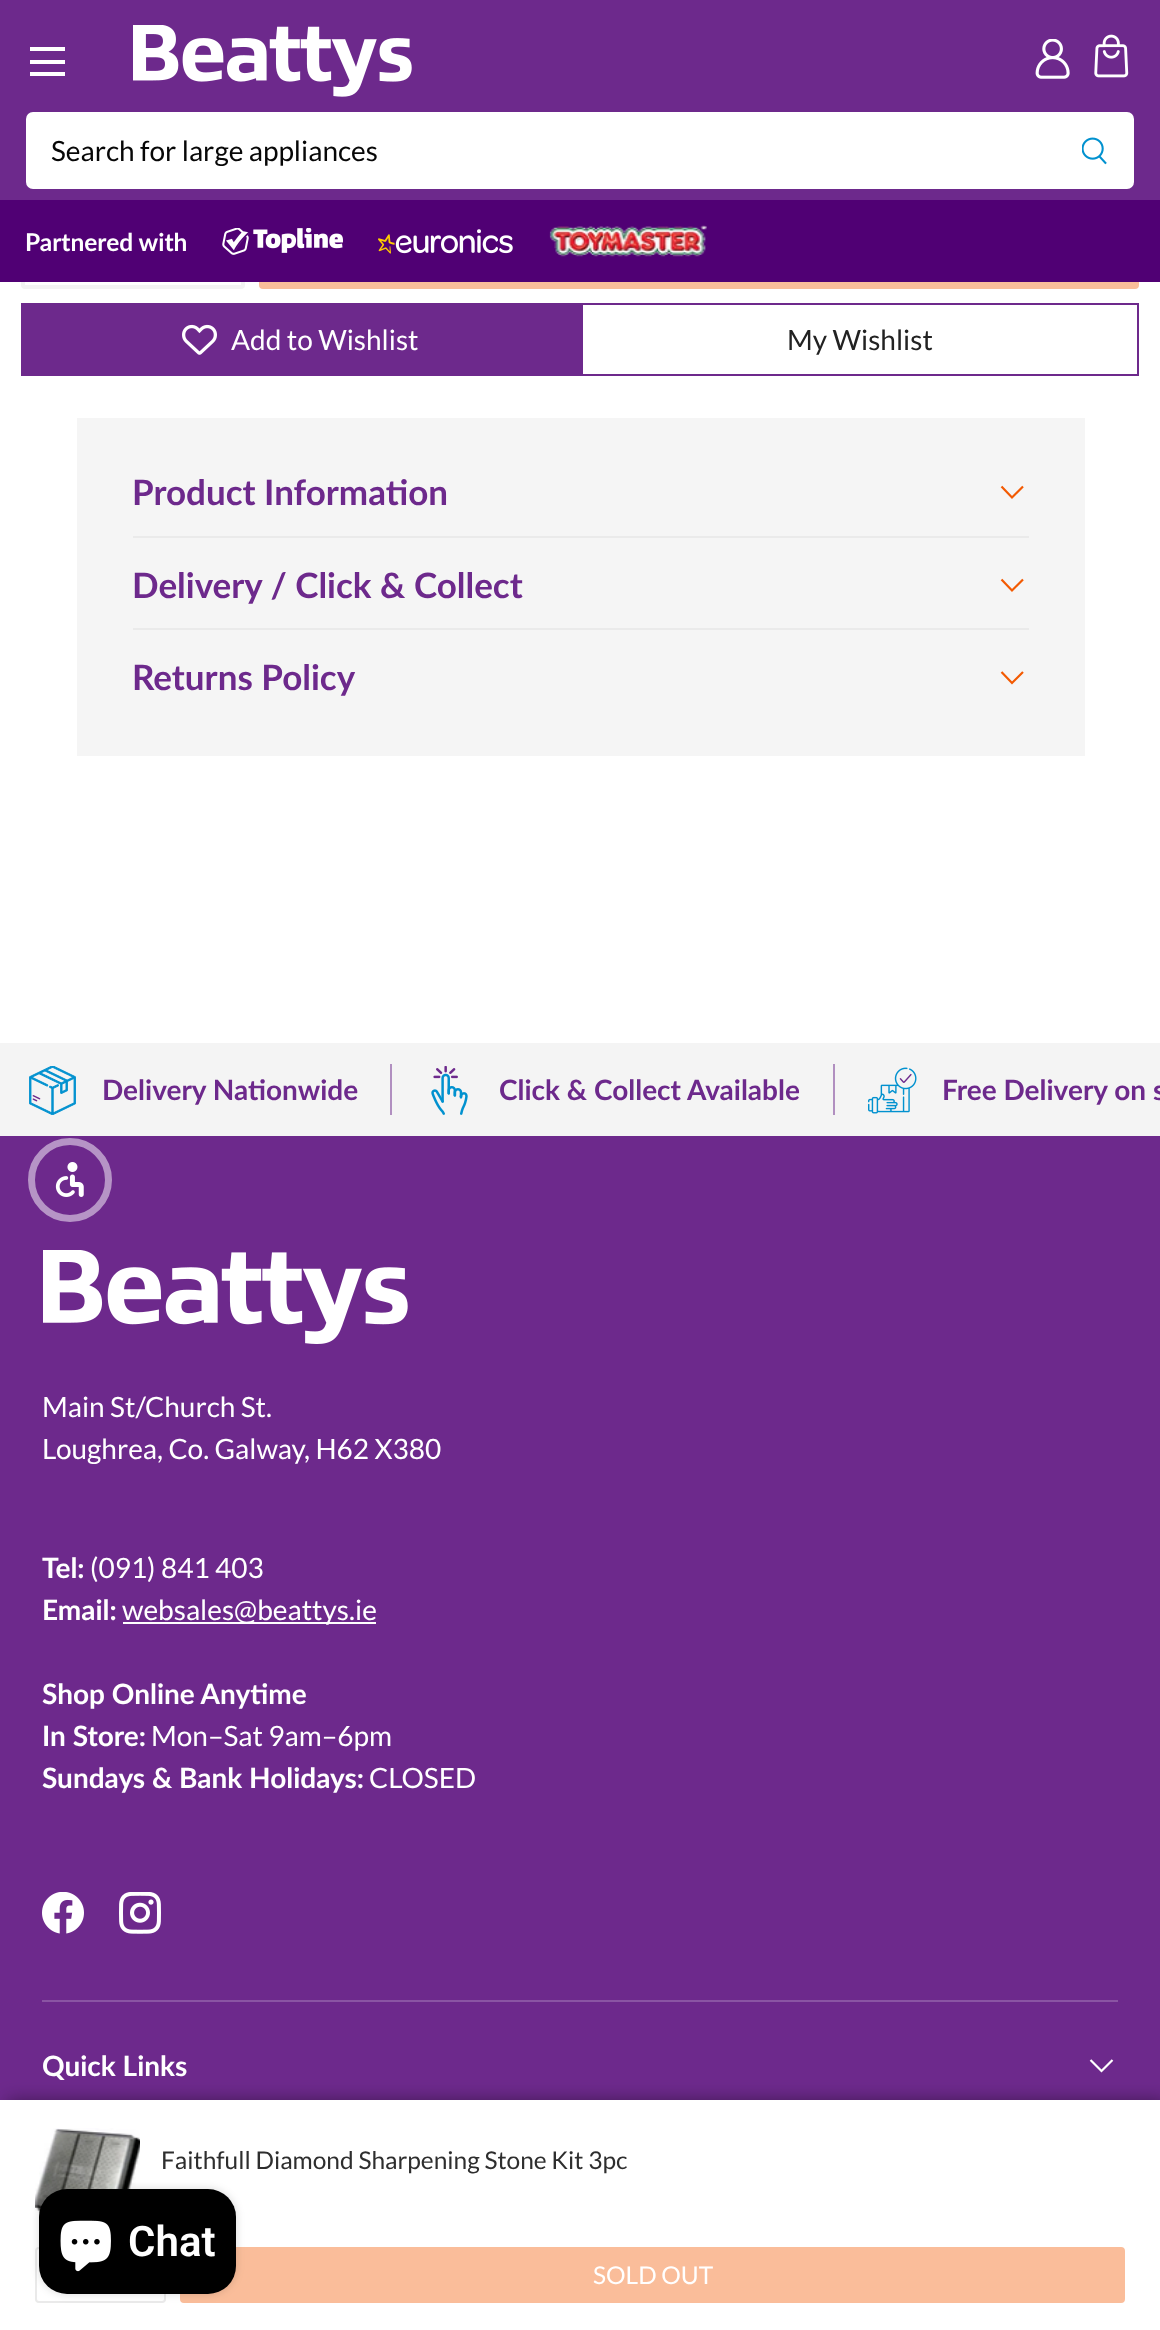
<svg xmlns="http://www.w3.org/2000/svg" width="1160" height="2330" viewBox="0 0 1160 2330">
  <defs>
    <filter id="blur1" x="-50%" y="-200%" width="200%" height="500%"><feGaussianBlur stdDeviation="9"/></filter>
    <filter id="blur2" x="-50%" y="-200%" width="200%" height="500%"><feGaussianBlur stdDeviation="4.5"/></filter>
  </defs>
  <rect width="100%" height="100%" fill="#ffffff"/>
  <rect x="23" y="188" width="220" height="99" rx="2" fill="none" stroke="#f3f3f3" stroke-width="4"/>
  <rect x="263" y="282" width="872" height="3" fill="#fabd9a"/>
  <rect x="261" y="188" width="876" height="99" rx="2" fill="none" stroke="#fabd9a" stroke-width="4"/>
  <rect x="0" y="0" width="1160" height="200" fill="#6d298c"/>
  <rect x="30" y="47" width="35" height="4" fill="#ffffff"/>
  <rect x="30" y="72" width="35" height="4" fill="#ffffff"/>
  <rect x="30" y="60" width="35" height="4" fill="#ffffff"/>
  <image x="133" y="25" width="279" height="72" href="img1.png"/>
  <image x="1035" y="39" width="35" height="40" href="img2.png"/>
  <image x="1094" y="34" width="35" height="44" href="img3.png"/>
  <rect x="26" y="112" width="1108" height="77" rx="7" fill="#ffffff"/>
  <text x="51" y="161" font-family="Lato" font-size="28" fill="#070707">Search for large appliances</text>
  <image x="1082" y="137" width="25" height="28" href="img4.png"/>
  <rect x="0" y="200" width="1160" height="82" fill="#500074"/>
  <text x="25" y="251" font-family="Lato" font-size="24.5" font-weight="bold" fill="#ffffff">Partnered with</text>
  <image x="222" y="228" width="121" height="27" href="img5.png"/>
  <image x="378" y="229" width="135" height="25" href="img6.png"/>
  <image x="549" y="225" width="158" height="32" href="img7.png"/>
  <rect x="21" y="303" width="560" height="73" fill="#6d298c"/>
  <image x="182" y="324" width="35" height="31" href="img8.png"/>
  <text x="231" y="350" font-family="Lato" font-size="28" fill="#ffffff">Add to Wishlist</text>
  <rect x="582" y="304" width="556" height="71" fill="none" stroke="#6d298c" stroke-width="2"/>
  <text x="787" y="350" font-family="Lato" font-size="28" fill="#222222">My Wishlist</text>
  <rect x="77" y="418" width="1008" height="338" fill="#f5f5f5"/>
  <rect x="133" y="536" width="896" height="2" fill="#eaeaea"/>
  <text x="132" y="505" font-family="Lato" font-size="35" font-weight="bold" fill="#6d298c">Product Information</text>
  <path d="M1023 486.5L1012 497.5L1001.5 486.5" fill="none" stroke="#f35a02" stroke-width="2.2"/>
  <rect x="133" y="628" width="896" height="2" fill="#eaeaea"/>
  <text x="132" y="598" font-family="Lato" font-size="35" font-weight="bold" fill="#6d298c">Delivery / Click &amp; Collect</text>
  <path d="M1023 579.5L1012 590.5L1001.5 579.5" fill="none" stroke="#f35a02" stroke-width="2.2"/>
  <text x="132" y="690" font-family="Lato" font-size="35" font-weight="bold" fill="#6d298c">Returns Policy</text>
  <path d="M1023 672L1012 683L1001.5 672" fill="none" stroke="#f35a02" stroke-width="2.2"/>
  <rect x="0" y="1043" width="1160" height="93" fill="#f4f4f4"/>
  <image x="29" y="1066" width="47" height="49" href="img9.png"/>
  <text x="102" y="1100" font-family="Lato" font-size="28" font-weight="bold" fill="#6d298c">Delivery Nationwide</text>
  <rect x="390" y="1064" width="2" height="51" fill="#b18fc0"/>
  <image x="431" y="1066" width="37" height="49" href="img10.png"/>
  <text x="499" y="1100" font-family="Lato" font-size="28" font-weight="bold" fill="#6d298c">Click &amp; Collect Available</text>
  <rect x="833" y="1064" width="2" height="51" fill="#b18fc0"/>
  <image x="868" y="1067" width="49" height="47" href="img11.png"/>
  <text x="942" y="1100" font-family="Lato" font-size="28" font-weight="bold" fill="#6d298c">Free Delivery on s</text>
  <rect x="0" y="1136" width="1160" height="964" fill="#6d298c"/>
  <circle cx="70" cy="1180" r="38.5" fill="none" stroke="#b694c6" stroke-width="7"/>
  <image x="55" y="1162" width="29" height="35" href="img12.png"/>
  <image x="43" y="1250" width="365" height="94" href="img13.png"/>
  <text x="42" y="1417" font-family="Lato" font-size="28" fill="#ffffff">Main St/Church St.</text>
  <text x="42" y="1459" font-family="Lato" font-size="28" fill="#ffffff">Loughrea, Co. Galway, H62 X380</text>
  <text x="42" y="1578" font-family="Lato" font-size="28" font-weight="bold" fill="#ffffff">Tel:</text>
  <text x="90" y="1578" font-family="Lato" font-size="28" fill="#ffffff">(091) 841 403</text>
  <text x="42" y="1620" font-family="Lato" font-size="28" font-weight="bold" fill="#ffffff">Email:</text>
  <rect x="123" y="1622" width="253" height="2" fill="#ffffff"/>
  <text x="122" y="1620" font-family="Lato" font-size="28" fill="#ffffff">websales@beattys.ie</text>
  <text x="42" y="1704" font-family="Lato" font-size="28" font-weight="bold" fill="#ffffff">Shop Online Anytime</text>
  <text x="42" y="1746" font-family="Lato" font-size="28" font-weight="bold" fill="#ffffff">In Store:</text>
  <text x="151" y="1746" font-family="Lato" font-size="28" fill="#ffffff">Mon–Sat 9am–6pm</text>
  <text x="42" y="1788" font-family="Lato" font-size="28" font-weight="bold" fill="#ffffff">Sundays &amp; Bank Holidays:</text>
  <text x="369" y="1788" font-family="Lato" font-size="28" fill="#ffffff">CLOSED</text>
  <image x="42" y="1892" width="42" height="42" href="img14.png"/>
  <image x="119" y="1892" width="42" height="42" href="img15.png"/>
  <rect x="42" y="2000" width="1076" height="2" fill="#8a54a3"/>
  <text x="42" y="2076" font-family="Lato" font-size="28" font-weight="bold" fill="#ffffff">Quick Links</text>
  <path d="M1112.5 2060L1101.5 2071L1090.5 2060" fill="none" stroke="#ffffff" stroke-width="2.2"/>
  <rect x="7" y="2100" width="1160" height="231" fill="#000000" fill-opacity="0.4" filter="url(#blur1)"/>
  <rect x="0" y="2100" width="1160" height="230" fill="#ffffff"/>
  <image x="35" y="2128" width="105" height="105" href="img16.png"/>
  <text x="161" y="2169" font-family="Lato" font-size="24.5" fill="#2e2e2e">Faithfull Diamond Sharpening Stone Kit 3pc</text>
  <rect x="36" y="2248" width="129" height="54" rx="3" fill="none" stroke="#eaeaea" stroke-width="2"/>
  <rect x="182" y="2249" width="941" height="52" rx="2" fill="#fabd9a" stroke="#fabd9a" stroke-width="4"/>
  <text x="593" y="2284" font-family="Lato" font-size="24.5" fill="#ffffff">SOLD OUT</text>
  <rect x="39" y="2189" width="197" height="105" rx="28" fill="#000000" fill-opacity="0.15" filter="url(#blur2)"/>
  <rect x="39" y="2189" width="197" height="105" rx="28" fill="#000000"/>
  <image x="60" y="2220" width="51" height="52" href="img17.png"/>
  <text x="128" y="2256" font-family="Roboto" font-size="42" font-weight="600" fill="#ffffff">Chat</text>
</svg>
